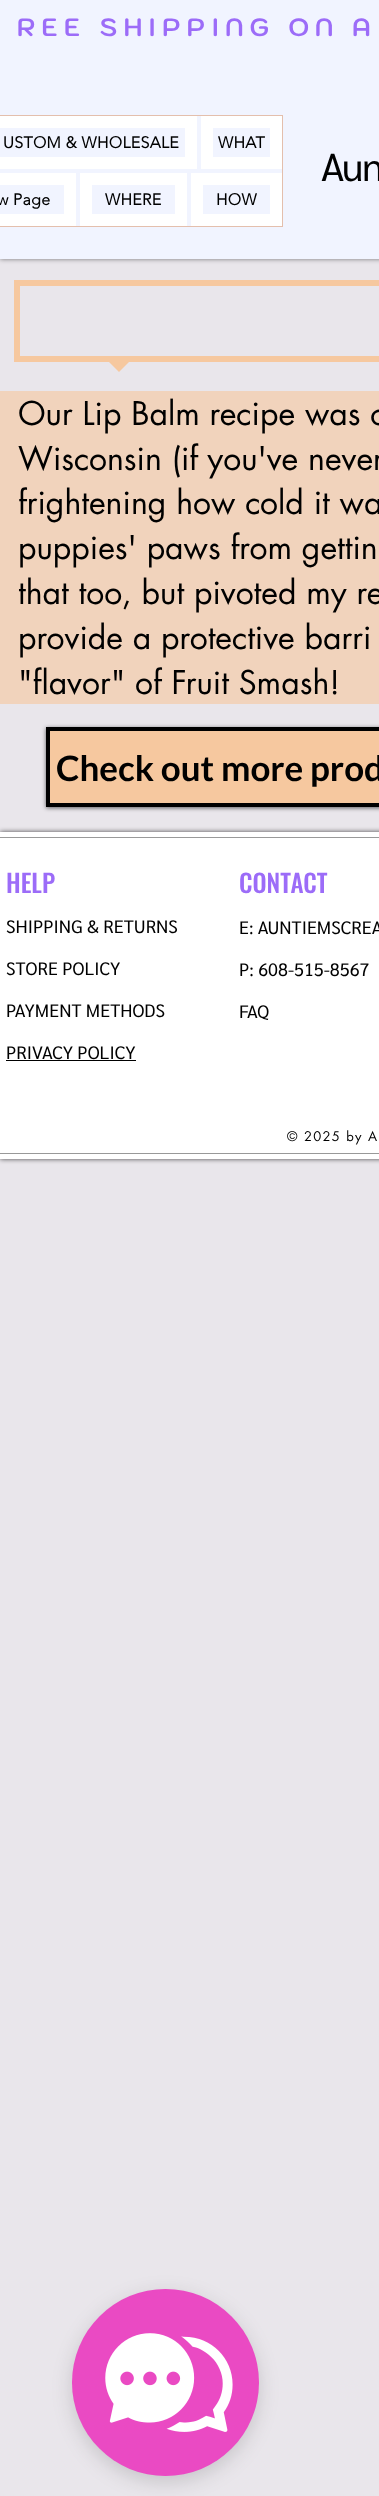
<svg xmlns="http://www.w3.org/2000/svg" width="379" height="2496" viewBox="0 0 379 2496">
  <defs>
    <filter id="blur1" x="-50%" y="-200%" width="200%" height="500%"><feGaussianBlur stdDeviation="2.5"/></filter>
    <filter id="blur2" x="-50%" y="-200%" width="200%" height="500%"><feGaussianBlur stdDeviation="2"/></filter>
    <filter id="blur3" x="-50%" y="-200%" width="200%" height="500%"><feGaussianBlur stdDeviation="10"/></filter>
  </defs>
  <rect width="100%" height="100%" fill="#e9e6eb"/>
  <rect x="0" y="0" width="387" height="259" fill="#000000" fill-opacity="0.5" filter="url(#blur1)"/>
  <rect x="0" y="0" width="379" height="259" fill="#f1f4ff"/>
  <text x="17" y="36" font-family="Kodchasan" font-size="25" font-weight="bold" letter-spacing="6.25" fill="#9c6cf8">REE SHIPPING ON A</text>
  <rect x="-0.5" y="115.5" width="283" height="111" fill="none" stroke="#e4bfad"/>
  <rect x="-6" y="122" width="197" height="41" fill="none" stroke="#ffffff" stroke-width="12"/>
  <text x="3" y="148" font-family="'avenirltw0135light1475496'" font-size="16" font-weight="bold" letter-spacing="0.3" fill="#000000">USTOM &amp; WHOLESALE</text>
  <rect x="207" y="122" width="69" height="41" fill="none" stroke="#ffffff" stroke-width="12"/>
  <text x="218" y="148" font-family="'avenirltw0135light1475496'" font-size="16" font-weight="bold" letter-spacing="0.3" fill="#000000">WHAT</text>
  <rect x="-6" y="179" width="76" height="41" fill="none" stroke="#ffffff" stroke-width="12"/>
  <text x="-3" y="205" font-family="'avenirltw0135light1475496'" font-size="16" font-weight="bold" letter-spacing="0.3" fill="#000000">w Page</text>
  <rect x="86" y="179" width="95" height="41" fill="none" stroke="#ffffff" stroke-width="12"/>
  <text x="105" y="205" font-family="'avenirltw0135light1475496'" font-size="16" font-weight="bold" letter-spacing="0.3" fill="#000000">WHERE</text>
  <rect x="197" y="179" width="79" height="41" fill="none" stroke="#ffffff" stroke-width="12"/>
  <text x="216" y="205" font-family="'avenirltw0135light1475496'" font-size="16" font-weight="bold" letter-spacing="0.3" fill="#000000">HOW</text>
  <text x="321" y="181" font-family="Sarabun" font-size="39" letter-spacing="-1" fill="#000000">Aun</text>
  <rect x="17" y="283" width="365" height="76" fill="none" stroke="#f6c89f" stroke-width="6"/>
  <path d="M109 362H129L119 372Z" fill="#f6c89f"/>
  <rect x="0" y="391" width="379" height="313" fill="#f1d3bc"/>
  <text x="18" y="425" font-family="futura" font-size="32" fill="#000000">Our Lip Balm recipe was c</text>
  <text x="18" y="470" font-family="futura" font-size="32" fill="#000000">Wisconsin (if you've never</text>
  <text x="18" y="514" font-family="futura" font-size="32" fill="#000000">frightening how cold it wa</text>
  <text x="18" y="559" font-family="futura" font-size="32" fill="#000000">puppies' paws from gettin</text>
  <text x="18" y="604" font-family="futura" font-size="32" fill="#000000">that too, but pivoted my re</text>
  <text x="18" y="649" font-family="futura" font-size="32" fill="#000000">provide a protective barri</text>
  <text x="18" y="694" font-family="futura" font-size="32" fill="#000000">"flavor" of Fruit Smash!</text>
  <rect x="46" y="728" width="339" height="80" fill="#000000" fill-opacity="0.6" filter="url(#blur2)"/>
  <rect x="48" y="729" width="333" height="76" fill="#f6c89f" stroke="#000000" stroke-width="4"/>
  <text x="56" y="781" font-family="Lato" font-size="35" font-weight="bold" fill="#000000">Check out more prod</text>
  <rect x="0" y="832" width="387" height="327" fill="#000000" fill-opacity="0.7" filter="url(#blur1)"/>
  <rect x="0" y="832" width="379" height="327" fill="#ffffff"/>
  <rect x="0" y="837" width="379" height="1" fill="#999999"/>
  <rect x="0" y="1153" width="379" height="1" fill="#999999"/>
  <text x="6" y="893" font-family="Oswald" font-size="25" font-weight="500" fill="#9c6cf8">HELP</text>
  <text x="239" y="893" font-family="Oswald" font-size="25" font-weight="500" fill="#9c6cf8">CONTACT</text>
  <text x="6" y="933" font-family="Sarabun" font-size="18" fill="#000000">SHIPPING &amp; RETURNS</text>
  <text x="6" y="975" font-family="Sarabun" font-size="18" fill="#000000">STORE POLICY</text>
  <text x="6" y="1017" font-family="Sarabun" font-size="18" fill="#000000">PAYMENT METHODS</text>
  <text x="6" y="1059" font-family="Sarabun" font-size="18" fill="#000000">PRIVACY POLICY</text>
  <rect x="6" y="1060" width="130" height="1" fill="#000000"/>
  <text x="239" y="934" font-family="Sarabun" font-size="18" fill="#000000">E: AUNTIEMSCREA</text>
  <text x="239" y="976" font-family="Sarabun" font-size="18" fill="#000000">P: 608-515-8567</text>
  <text x="239" y="1018" font-family="Sarabun" font-size="18" fill="#000000">FAQ</text>
  <text x="287" y="1141" font-family="futura" font-size="13" letter-spacing="1.25" fill="#000000">© 2025 by A</text>
  <rect x="72" y="2295" width="187" height="187" rx="93.5" fill="#000000" fill-opacity="0.15" filter="url(#blur3)"/>
  <circle cx="165.5" cy="2382.5" r="93.5" fill="#ea4ac3"/>
  <image x="105" y="2333" width="128" height="99" href="img1.png"/>
</svg>
